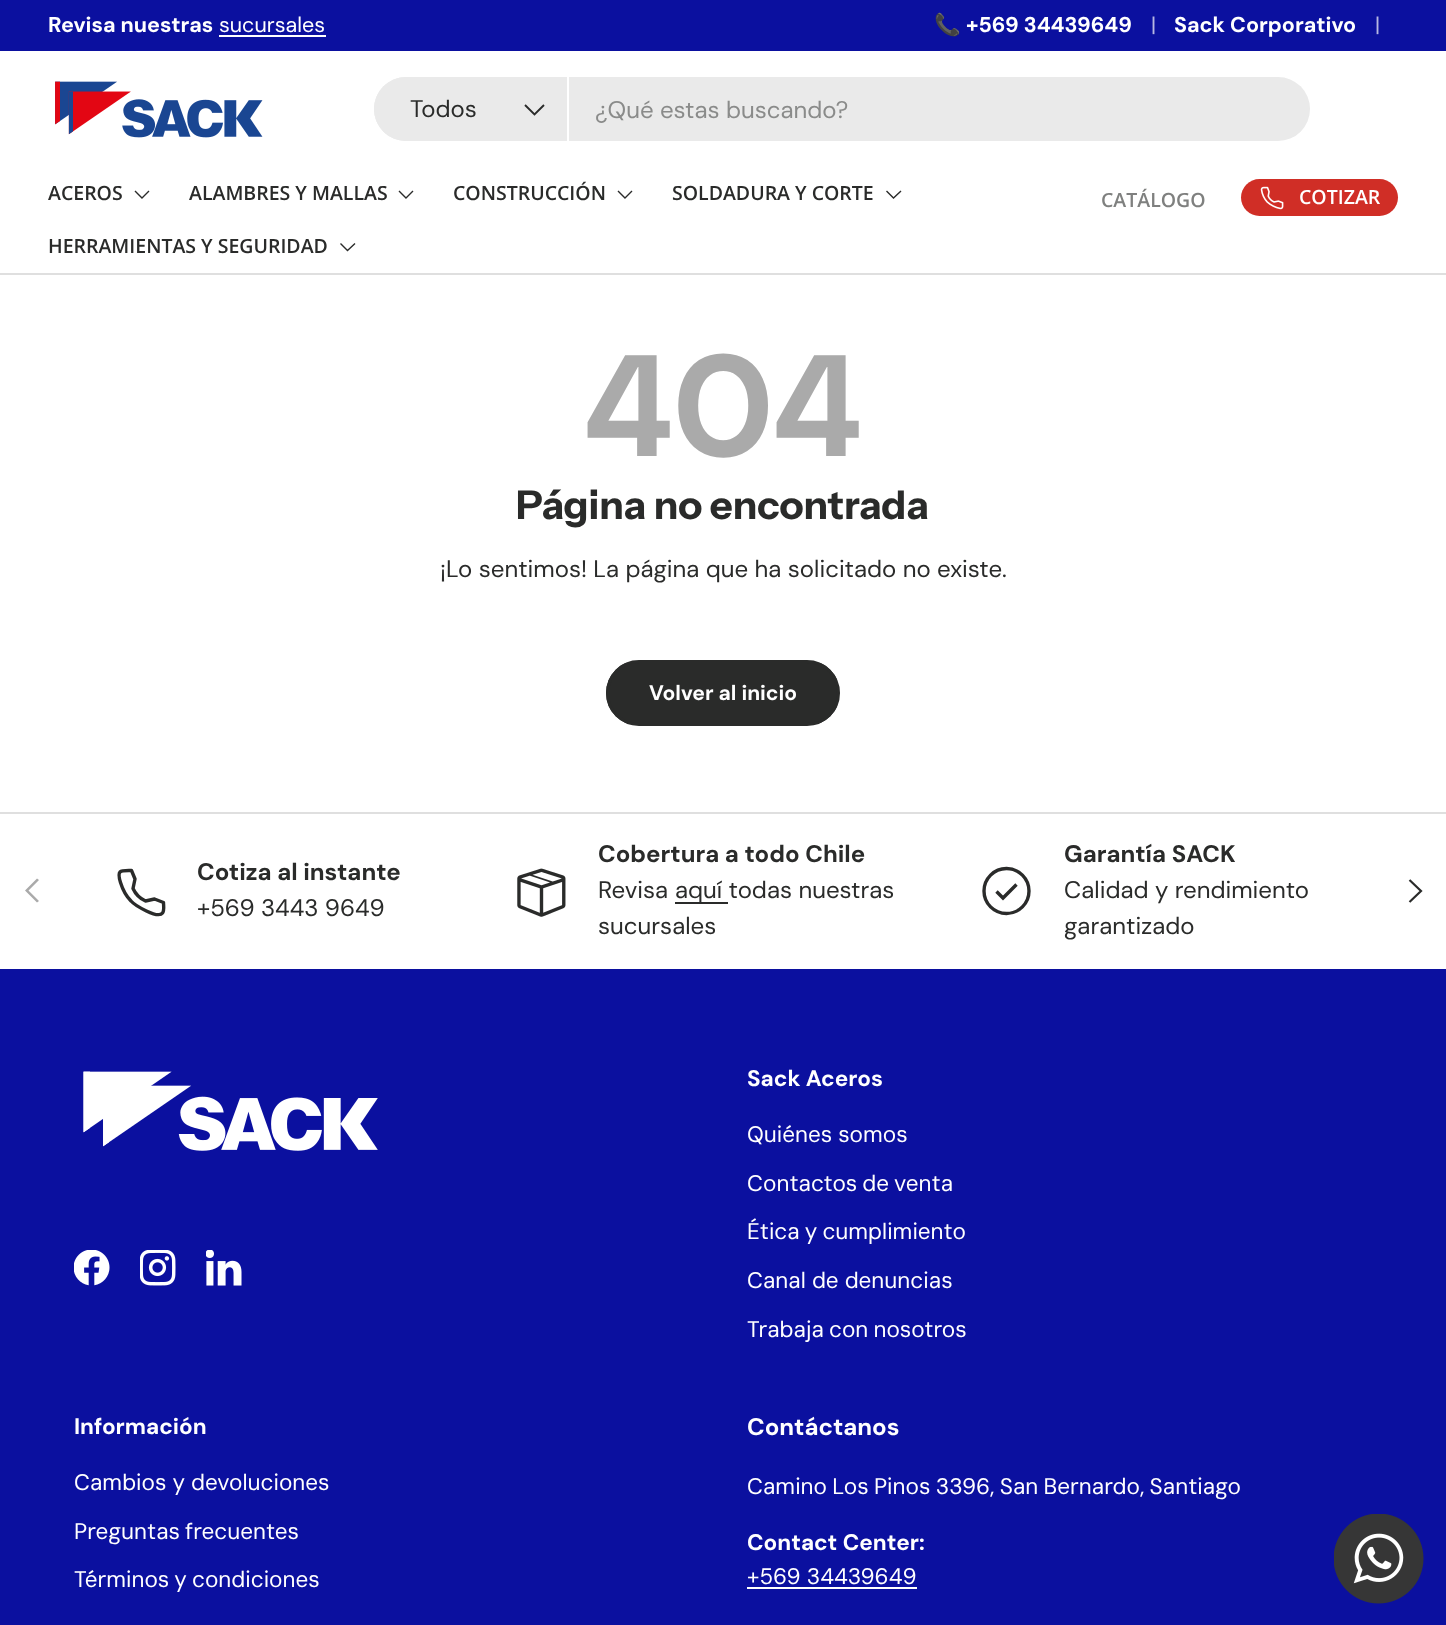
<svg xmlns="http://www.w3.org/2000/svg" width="1446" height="1625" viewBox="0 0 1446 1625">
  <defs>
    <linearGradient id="g1" gradientUnits="userSpaceOnUse" x1="935" y1="141" x2="1389" y2="254"><stop offset="0.6" stop-color="#da5954"/><stop offset="0.6" stop-color="#d02e26"/><stop offset="1" stop-color="#d02e26"/></linearGradient>
    <clipPath id="clip1"><rect x="606" y="660" width="234" height="66" rx="33"/></clipPath>
    <linearGradient id="g2" gradientUnits="userSpaceOnUse" x1="166" y1="611" x2="824" y2="775"><stop offset="0.6" stop-color="#525352"/><stop offset="0.6" stop-color="#2a2b2a"/><stop offset="1" stop-color="#2a2b2a"/></linearGradient>
  </defs>
  <rect width="100%" height="100%" fill="#ffffff"/>
  <rect x="0" y="0" width="1446" height="51" fill="#0b109f"/>
  <text x="48" y="32" font-family="'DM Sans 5'" font-size="21.5" font-weight="bold" fill="#ffffff">Revisa nuestras</text>
  <text x="219" y="32" font-family="'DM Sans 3'" font-size="21.5" fill="#ffffff">sucursales</text>
  <rect x="219" y="35" width="107" height="2" fill="#ffffff"/>
  <text x="934" y="32" font-family="Noto Color Emoji" font-size="21.5" font-weight="bold" fill="#ffffff">📞</text>
  <text x="966" y="32" font-family="'DM Sans 5'" font-size="21.5" font-weight="bold" fill="#ffffff">+569 34439649</text>
  <text x="1151" y="32" font-family="'DM Sans 3'" font-size="21.5" fill="#b6b7e2">|</text>
  <text x="1174" y="32" font-family="'DM Sans 5'" font-size="21.5" font-weight="bold" fill="#ffffff">Sack Corporativo</text>
  <text x="1375" y="32" font-family="'DM Sans 3'" font-size="21.5" fill="#b6b7e2">|</text>
  <rect x="0" y="273" width="1446" height="2" fill="#dfdfdf"/>
  <image x="55" y="81" width="208" height="57" href="img1.png"/>
  <rect x="374" y="77" width="936" height="64" rx="32" fill="#eaeaea"/>
  <path d="M406 77H569V141H406C388.5 141 374 126.5 374 109C374 91.5 388.5 77 406 77Z" fill="#eaeaea"/>
  <rect x="567" y="77" width="2" height="64" fill="#ffffff"/>
  <text x="410" y="117" font-family="DM Sans" font-size="24" fill="#2a2b2a">Todos</text>
  <path d="M544 105L534.5 114.5L525 105" fill="none" stroke="#2a2b2a" stroke-width="1.9"/>
  <text x="595" y="118" font-family="DM Sans" font-size="24" fill="#8a8b8a">¿Qué estas buscando?</text>
  <text x="48" y="200" font-family="Open Sans" font-size="19.5" font-weight="600" fill="#2a2b2a">ACEROS</text>
  <path d="M149 191L142 198L135 191" fill="none" stroke="#2a2b2a" stroke-width="1.4"/>
  <text x="189" y="200" font-family="Open Sans" font-size="19.5" font-weight="600" fill="#2a2b2a">ALAMBRES Y MALLAS</text>
  <path d="M413 191L406 198L399 191" fill="none" stroke="#2a2b2a" stroke-width="1.4"/>
  <text x="453" y="200" font-family="Open Sans" font-size="19.5" font-weight="600" fill="#2a2b2a">CONSTRUCCIÓN</text>
  <path d="M632 191L625 198L618 191" fill="none" stroke="#2a2b2a" stroke-width="1.4"/>
  <text x="672" y="200" font-family="Open Sans" font-size="19.5" font-weight="600" fill="#2a2b2a">SOLDADURA Y CORTE</text>
  <path d="M901 191L893.5 198L886.5 191" fill="none" stroke="#2a2b2a" stroke-width="1.4"/>
  <text x="48" y="253" font-family="Open Sans" font-size="19.5" font-weight="600" fill="#2a2b2a">HERRAMIENTAS Y SEGURIDAD</text>
  <path d="M355 243.5L347.5 250.5L340.5 243.5" fill="none" stroke="#2a2b2a" stroke-width="1.4"/>
  <text x="1101" y="207" font-family="Open Sans" font-size="19.5" font-weight="600" fill="#7f807f">CATÁLOGO</text>
  <rect x="1241" y="179" width="157" height="37" rx="18.5" fill="url(#g1)"/>
  <image x="1260" y="186" width="24" height="24" href="img2.png"/>
  <text x="1299" y="204" font-family="Open Sans" font-size="19.5" font-weight="600" fill="#ffffff">COTIZAR</text>
  <text x="584" y="456" font-family="DM Sans" font-size="144" font-weight="bold" fill="#aaaaaa">404</text>
  <text x="516" y="519" font-family="Instrument Sans" font-size="39.75" font-weight="bold" fill="#2a2b2a">Página no encontrada</text>
  <text x="440" y="577" font-family="DM Sans" font-size="24" fill="#2a2b2a">¡Lo sentimos! La página que ha solicitado no existe.</text>
  <g clip-path="url(#clip1)">
    <rect x="606" y="663" width="231" height="60" fill="url(#g2)"/>
  </g>
  <rect x="607.5" y="661.5" width="231" height="63" rx="31.5" fill="none" stroke="#2a2b2a" stroke-width="3"/>
  <text x="649" y="700" font-family="'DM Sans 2'" font-size="21" font-weight="bold" fill="#ffffff">Volver al inicio</text>
  <rect x="0" y="812" width="1446" height="2" fill="#dfdfdf"/>
  <path d="M154.5 899L145.5 901C140 898.5 135.5 894 133 888.5L135 879L131.5 870.5C120.5 870.5 116.5 869.5 120.5 882.5C122.5 889 126 896 131 901C134.5 905 158 919.5 162.5 913C164.5 910.5 163.5 905.5 163.5 902.5Z" fill="none" stroke="#2a2b2a" stroke-width="3.4" stroke-linecap="round" stroke-linejoin="round"/>
  <text x="197" y="880" font-family="'DM Sans 3'" font-size="24" font-weight="bold" fill="#2a2b2a">Cotiza al instante</text>
  <text x="197" y="916" font-family="DM Sans" font-size="24" fill="#2a2b2a">+569 3443 9649</text>
  <image x="517" y="868" width="49" height="49" href="img3.png"/>
  <text x="598" y="862" font-family="'DM Sans 3'" font-size="24" font-weight="bold" fill="#2a2b2a">Cobertura a todo Chile</text>
  <text x="598" y="898" font-family="DM Sans" font-size="24" fill="#2a2b2a">Revisa</text>
  <rect x="675" y="902" width="53" height="2" fill="#2a2b2a"/>
  <text x="675" y="898" font-family="DM Sans" font-size="24" fill="#2a2b2a">aquí todas nuestras</text>
  <text x="598" y="934" font-family="DM Sans" font-size="24" fill="#2a2b2a">sucursales</text>
  <circle cx="1006.5" cy="891" r="22.5" fill="none" stroke="#2a2b2a" stroke-width="3.4"/>
  <path d="M1016.5 884.5L1003 898L996.5 891.5" fill="none" stroke="#2a2b2a" stroke-width="3.4"/>
  <text x="1064" y="862" font-family="'DM Sans 3'" font-size="24" font-weight="bold" fill="#2a2b2a">Garantía SACK</text>
  <text x="1064" y="898" font-family="DM Sans" font-size="24" fill="#2a2b2a">Calidad y rendimiento</text>
  <text x="1064" y="934" font-family="DM Sans" font-size="24" fill="#2a2b2a">garantizado</text>
  <path d="M25 890.5L37 878.5L39 880L28.5 890.5L39 901L37 902.5Z" fill="#aaaaaa"/>
  <path d="M1409.5 880L1421 891L1409.5 902" fill="none" stroke="#2a2b2a" stroke-width="2.2"/>
  <rect x="0" y="969" width="1446" height="656" fill="#0b109f"/>
  <image x="83" y="1071" width="295" height="80" href="img4.png"/>
  <image x="74" y="1250" width="36" height="36" href="img5.png"/>
  <image x="140" y="1250" width="36" height="36" href="img6.png"/>
  <image x="206" y="1250" width="36" height="36" href="img7.png"/>
  <text x="747" y="1086" font-family="'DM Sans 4'" font-size="22.5" font-weight="bold" fill="#ffffff">Sack Aceros</text>
  <text x="747" y="1142" font-family="'DM Sans 2'" font-size="22.5" fill="#ffffff">Quiénes somos</text>
  <text x="747" y="1191" word-spacing="-1" font-family="'DM Sans 2'" font-size="22.5" fill="#ffffff">Contactos de venta</text>
  <text x="747" y="1239" word-spacing="-1" font-family="'DM Sans 2'" font-size="22.5" fill="#ffffff">Ética y cumplimiento</text>
  <text x="747" y="1288" font-family="'DM Sans 2'" font-size="22.5" fill="#ffffff">Canal de denuncias</text>
  <text x="747" y="1337" word-spacing="-1" font-family="'DM Sans 2'" font-size="22.5" fill="#ffffff">Trabaja con nosotros</text>
  <text x="74" y="1434" font-family="'DM Sans 4'" font-size="22.5" font-weight="bold" fill="#ffffff">Información</text>
  <text x="74" y="1490" font-family="'DM Sans 2'" font-size="22.5" fill="#ffffff">Cambios y devoluciones</text>
  <text x="74" y="1539" word-spacing="-1" font-family="'DM Sans 2'" font-size="22.5" fill="#ffffff">Preguntas frecuentes</text>
  <text x="74" y="1587" word-spacing="-1" font-family="'DM Sans 2'" font-size="22.5" fill="#ffffff">Términos y condiciones</text>
  <text x="747" y="1435" font-family="'DM Sans 3'" font-size="24" font-weight="bold" fill="#ffffff">Contáctanos</text>
  <text x="747" y="1494" word-spacing="-0.75" font-family="'DM Sans 2'" font-size="22.5" fill="#ffffff">Camino Los Pinos 3396, San Bernardo, Santiago</text>
  <text x="747" y="1550" font-family="'DM Sans 4'" font-size="22.5" font-weight="bold" fill="#ffffff">Contact Center:</text>
  <text x="747" y="1584" font-family="'DM Sans 2'" font-size="22.5" fill="#ffffff">+569 34439649</text>
  <rect x="747" y="1587" width="170" height="2" fill="#ffffff"/>
  <image x="1334" y="1514" width="90" height="90" href="img8.png"/>
</svg>
